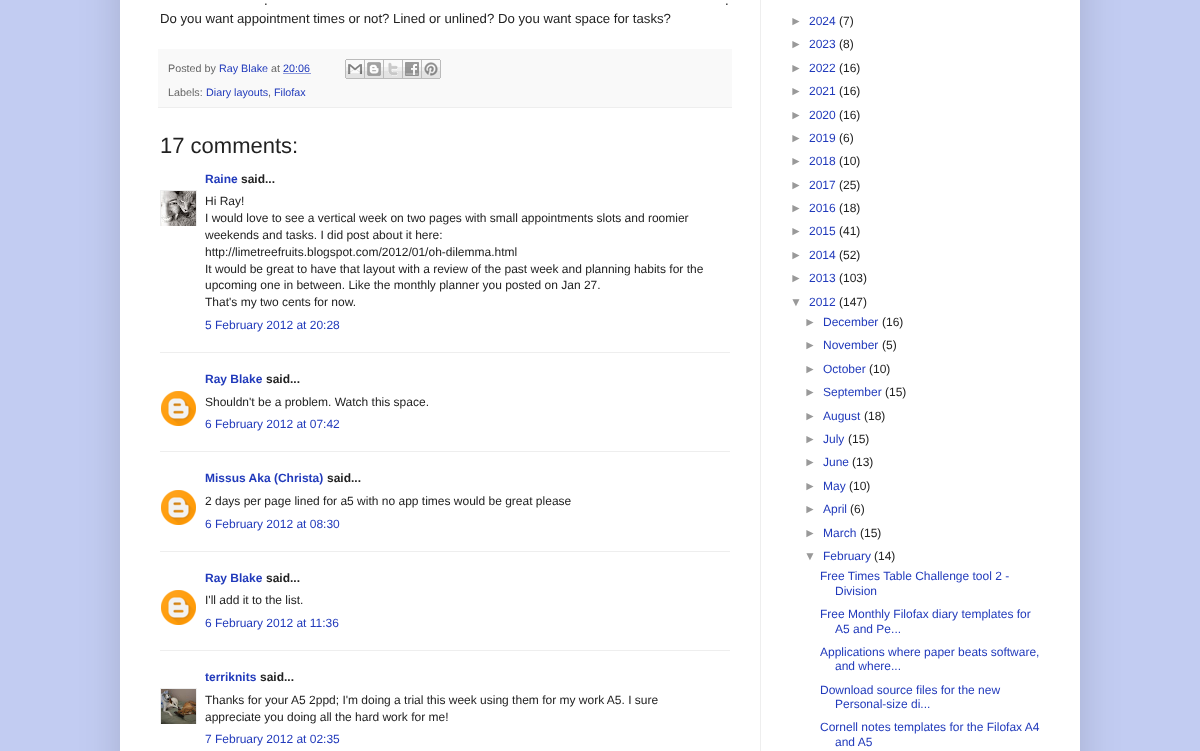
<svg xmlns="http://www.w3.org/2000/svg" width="1200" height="751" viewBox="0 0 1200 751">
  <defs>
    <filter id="blur1" x="-50%" y="-200%" width="200%" height="500%"><feGaussianBlur stdDeviation="20"/></filter>
    <clipPath id="clip1"><rect x="160" y="190" width="37" height="36"/></clipPath>
    <clipPath id="clip2"><rect x="160" y="688" width="37" height="36"/></clipPath>
  </defs>
  <rect width="100%" height="100%" fill="#c2ccf2"/>
  <rect x="120" y="-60" width="960" height="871" fill="#000000" fill-opacity="0.15" filter="url(#blur1)"/>
  <rect x="120" y="0" width="960" height="751" fill="#ffffff"/>
  <rect x="760" y="0" width="1" height="751" fill="#eeeeee"/>
  <text x="264" y="5" font-family="Liberation Sans" font-size="13.2" fill="#222222">.</text>
  <text x="725" y="5" font-family="Liberation Sans" font-size="13.2" fill="#222222">.</text>
  <text x="160" y="23" font-family="Liberation Sans" font-size="13.2" fill="#222222">Do you want appointment times or not? Lined or unlined? Do you want space for tasks?</text>
  <rect x="158" y="49" width="574" height="58" fill="#f9f9f9"/>
  <rect x="158" y="107" width="574" height="1" fill="#eeeeee"/>
  <text x="168" y="72" font-family="Liberation Sans" font-size="10.75" fill="#666666">Posted by</text>
  <text x="219" y="72" font-family="Liberation Sans" font-size="10.75" fill="#213abb">Ray Blake</text>
  <text x="271" y="72" font-family="Liberation Sans" font-size="10.75" fill="#666666">at</text>
  <text x="283" y="72" font-family="Liberation Sans" font-size="10.75" fill="#213abb">20:06</text>
  <path d="M283.5 73.5H310.5" fill="none" stroke="#213abb" stroke-dasharray="1 1"/>
  <image x="345" y="59" width="20" height="20" href="img1.png"/>
  <image x="365" y="59" width="19" height="20" href="img2.png"/>
  <image x="384" y="59" width="19" height="20" href="img3.png"/>
  <image x="403" y="59" width="19" height="20" href="img4.png"/>
  <image x="422" y="59" width="19" height="20" href="img5.png"/>
  <text x="168" y="96" font-family="Liberation Sans" font-size="10.75" fill="#666666">Labels:</text>
  <text x="206" y="96" font-family="Liberation Sans" font-size="10.75" fill="#213abb">Diary layouts</text>
  <text x="268" y="96" font-family="Liberation Sans" font-size="10.75" fill="#666666">,</text>
  <text x="274" y="96" font-family="Liberation Sans" font-size="10.75" fill="#213abb">Filofax</text>
  <text x="160" y="153" font-family="Liberation Sans" font-size="22" fill="#222222">17 comments:</text>
  <text x="205" y="183" font-family="Liberation Sans" font-size="12" font-weight="bold" fill="#213abb">Raine</text>
  <text x="241" y="183" font-family="Liberation Sans" font-size="12" font-weight="bold" fill="#222222">said...</text>
  <g clip-path="url(#clip1)">
    <rect x="160.5" y="190.5" width="36" height="36" fill="none" stroke="#eeeeee"/>
  </g>
  <image x="161" y="191" width="35" height="35" href="img6.png"/>
  <text x="205" y="205" font-family="Liberation Sans" font-size="12" fill="#222222">Hi Ray!</text>
  <text x="205" y="222" font-family="Liberation Sans" font-size="12" fill="#222222">I would love to see a vertical week on two pages with small appointments slots and roomier</text>
  <text x="205" y="239" font-family="Liberation Sans" font-size="12" fill="#222222">weekends and tasks. I did post about it here:</text>
  <text x="205" y="256" font-family="Liberation Sans" font-size="12" fill="#222222">http://limetreefruits.blogspot.com/2012/01/oh-dilemma.html</text>
  <text x="205" y="273" font-family="Liberation Sans" font-size="12" fill="#222222">It would be great to have that layout with a review of the past week and planning habits for the</text>
  <text x="205" y="289" font-family="Liberation Sans" font-size="12" fill="#222222">upcoming one in between. Like the monthly planner you posted on Jan 27.</text>
  <text x="205" y="306" font-family="Liberation Sans" font-size="12" fill="#222222">That's my two cents for now.</text>
  <text x="205" y="329" font-family="Liberation Sans" font-size="12" fill="#213abb">5 February 2012 at 20:28</text>
  <rect x="160" y="352" width="570" height="1" fill="#eeeeee"/>
  <text x="205" y="383" font-family="Liberation Sans" font-size="12" font-weight="bold" fill="#213abb">Ray Blake</text>
  <text x="266" y="383" font-family="Liberation Sans" font-size="12" font-weight="bold" fill="#222222">said...</text>
  <image x="161" y="391" width="35" height="35" href="img7.png"/>
  <text x="205" y="406" font-family="Liberation Sans" font-size="12" fill="#222222">Shouldn't be a problem. Watch this space.</text>
  <text x="205" y="428" font-family="Liberation Sans" font-size="12" fill="#213abb">6 February 2012 at 07:42</text>
  <rect x="160" y="451" width="570" height="1" fill="#eeeeee"/>
  <text x="205" y="482" font-family="Liberation Sans" font-size="12" font-weight="bold" fill="#213abb">Missus Aka (Christa)</text>
  <text x="327" y="482" font-family="Liberation Sans" font-size="12" font-weight="bold" fill="#222222">said...</text>
  <image x="161" y="490" width="35" height="35" href="img7.png"/>
  <text x="205" y="505" font-family="Liberation Sans" font-size="12" fill="#222222">2 days per page lined for a5 with no app times would be great please</text>
  <text x="205" y="528" font-family="Liberation Sans" font-size="12" fill="#213abb">6 February 2012 at 08:30</text>
  <rect x="160" y="551" width="570" height="1" fill="#eeeeee"/>
  <text x="205" y="582" font-family="Liberation Sans" font-size="12" font-weight="bold" fill="#213abb">Ray Blake</text>
  <text x="266" y="582" font-family="Liberation Sans" font-size="12" font-weight="bold" fill="#222222">said...</text>
  <image x="161" y="590" width="35" height="35" href="img7.png"/>
  <text x="205" y="604" font-family="Liberation Sans" font-size="12" fill="#222222">I'll add it to the list.</text>
  <text x="205" y="627" font-family="Liberation Sans" font-size="12" fill="#213abb">6 February 2012 at 11:36</text>
  <rect x="160" y="650" width="570" height="1" fill="#eeeeee"/>
  <text x="205" y="681" font-family="Liberation Sans" font-size="12" font-weight="bold" fill="#213abb">terriknits</text>
  <text x="260" y="681" font-family="Liberation Sans" font-size="12" font-weight="bold" fill="#222222">said...</text>
  <g clip-path="url(#clip2)">
    <rect x="160.5" y="688.5" width="36" height="36" fill="none" stroke="#eeeeee"/>
  </g>
  <image x="161" y="689" width="35" height="35" href="img8.png"/>
  <text x="205" y="704" font-family="Liberation Sans" font-size="12" fill="#222222">Thanks for your A5 2ppd; I'm doing a trial this week using them for my work A5. I sure</text>
  <text x="205" y="721" font-family="Liberation Sans" font-size="12" fill="#222222">appreciate you doing all the hard work for me!</text>
  <text x="205" y="743" font-family="Liberation Sans" font-size="12" fill="#213abb">7 February 2012 at 02:35</text>
  <text x="790" y="25" font-family="Liberation Sans" font-size="12" fill="#999999">►</text>
  <text x="809" y="25" font-family="Liberation Sans" font-size="12" fill="#213abb">2024</text>
  <text x="839" y="25" font-family="Liberation Sans" font-size="12" fill="#222222">(7)</text>
  <text x="790" y="48" font-family="Liberation Sans" font-size="12" fill="#999999">►</text>
  <text x="809" y="48" font-family="Liberation Sans" font-size="12" fill="#213abb">2023</text>
  <text x="839" y="48" font-family="Liberation Sans" font-size="12" fill="#222222">(8)</text>
  <text x="790" y="72" font-family="Liberation Sans" font-size="12" fill="#999999">►</text>
  <text x="809" y="72" font-family="Liberation Sans" font-size="12" fill="#213abb">2022</text>
  <text x="839" y="72" font-family="Liberation Sans" font-size="12" fill="#222222">(16)</text>
  <text x="790" y="95" font-family="Liberation Sans" font-size="12" fill="#999999">►</text>
  <text x="809" y="95" font-family="Liberation Sans" font-size="12" fill="#213abb">2021</text>
  <text x="839" y="95" font-family="Liberation Sans" font-size="12" fill="#222222">(16)</text>
  <text x="790" y="119" font-family="Liberation Sans" font-size="12" fill="#999999">►</text>
  <text x="809" y="119" font-family="Liberation Sans" font-size="12" fill="#213abb">2020</text>
  <text x="839" y="119" font-family="Liberation Sans" font-size="12" fill="#222222">(16)</text>
  <text x="790" y="142" font-family="Liberation Sans" font-size="12" fill="#999999">►</text>
  <text x="809" y="142" font-family="Liberation Sans" font-size="12" fill="#213abb">2019</text>
  <text x="839" y="142" font-family="Liberation Sans" font-size="12" fill="#222222">(6)</text>
  <text x="790" y="165" font-family="Liberation Sans" font-size="12" fill="#999999">►</text>
  <text x="809" y="165" font-family="Liberation Sans" font-size="12" fill="#213abb">2018</text>
  <text x="839" y="165" font-family="Liberation Sans" font-size="12" fill="#222222">(10)</text>
  <text x="790" y="189" font-family="Liberation Sans" font-size="12" fill="#999999">►</text>
  <text x="809" y="189" font-family="Liberation Sans" font-size="12" fill="#213abb">2017</text>
  <text x="839" y="189" font-family="Liberation Sans" font-size="12" fill="#222222">(25)</text>
  <text x="790" y="212" font-family="Liberation Sans" font-size="12" fill="#999999">►</text>
  <text x="809" y="212" font-family="Liberation Sans" font-size="12" fill="#213abb">2016</text>
  <text x="839" y="212" font-family="Liberation Sans" font-size="12" fill="#222222">(18)</text>
  <text x="790" y="235" font-family="Liberation Sans" font-size="12" fill="#999999">►</text>
  <text x="809" y="235" font-family="Liberation Sans" font-size="12" fill="#213abb">2015</text>
  <text x="839" y="235" font-family="Liberation Sans" font-size="12" fill="#222222">(41)</text>
  <text x="790" y="259" font-family="Liberation Sans" font-size="12" fill="#999999">►</text>
  <text x="809" y="259" font-family="Liberation Sans" font-size="12" fill="#213abb">2014</text>
  <text x="839" y="259" font-family="Liberation Sans" font-size="12" fill="#222222">(52)</text>
  <text x="790" y="282" font-family="Liberation Sans" font-size="12" fill="#999999">►</text>
  <text x="809" y="282" font-family="Liberation Sans" font-size="12" fill="#213abb">2013</text>
  <text x="839" y="282" font-family="Liberation Sans" font-size="12" fill="#222222">(103)</text>
  <text x="790" y="306" font-family="Liberation Sans" font-size="12" fill="#999999">▼</text>
  <text x="809" y="306" font-family="Liberation Sans" font-size="12" fill="#213abb">2012</text>
  <text x="839" y="306" font-family="Liberation Sans" font-size="12" fill="#222222">(147)</text>
  <text x="804" y="326" font-family="Liberation Sans" font-size="12" fill="#999999">►</text>
  <text x="823" y="326" font-family="Liberation Sans" font-size="12" fill="#213abb">December</text>
  <text x="882" y="326" font-family="Liberation Sans" font-size="12" fill="#222222">(16)</text>
  <text x="804" y="349" font-family="Liberation Sans" font-size="12" fill="#999999">►</text>
  <text x="823" y="349" font-family="Liberation Sans" font-size="12" fill="#213abb">November</text>
  <text x="882" y="349" font-family="Liberation Sans" font-size="12" fill="#222222">(5)</text>
  <text x="804" y="373" font-family="Liberation Sans" font-size="12" fill="#999999">►</text>
  <text x="823" y="373" font-family="Liberation Sans" font-size="12" fill="#213abb">October</text>
  <text x="869" y="373" font-family="Liberation Sans" font-size="12" fill="#222222">(10)</text>
  <text x="804" y="396" font-family="Liberation Sans" font-size="12" fill="#999999">►</text>
  <text x="823" y="396" font-family="Liberation Sans" font-size="12" fill="#213abb">September</text>
  <text x="885" y="396" font-family="Liberation Sans" font-size="12" fill="#222222">(15)</text>
  <text x="804" y="420" font-family="Liberation Sans" font-size="12" fill="#999999">►</text>
  <text x="823" y="420" font-family="Liberation Sans" font-size="12" fill="#213abb">August</text>
  <text x="864" y="420" font-family="Liberation Sans" font-size="12" fill="#222222">(18)</text>
  <text x="804" y="443" font-family="Liberation Sans" font-size="12" fill="#999999">►</text>
  <text x="823" y="443" font-family="Liberation Sans" font-size="12" fill="#213abb">July</text>
  <text x="848" y="443" font-family="Liberation Sans" font-size="12" fill="#222222">(15)</text>
  <text x="804" y="466" font-family="Liberation Sans" font-size="12" fill="#999999">►</text>
  <text x="823" y="466" font-family="Liberation Sans" font-size="12" fill="#213abb">June</text>
  <text x="852" y="466" font-family="Liberation Sans" font-size="12" fill="#222222">(13)</text>
  <text x="804" y="490" font-family="Liberation Sans" font-size="12" fill="#999999">►</text>
  <text x="823" y="490" font-family="Liberation Sans" font-size="12" fill="#213abb">May</text>
  <text x="849" y="490" font-family="Liberation Sans" font-size="12" fill="#222222">(10)</text>
  <text x="804" y="513" font-family="Liberation Sans" font-size="12" fill="#999999">►</text>
  <text x="823" y="513" font-family="Liberation Sans" font-size="12" fill="#213abb">April</text>
  <text x="850" y="513" font-family="Liberation Sans" font-size="12" fill="#222222">(6)</text>
  <text x="804" y="537" font-family="Liberation Sans" font-size="12" fill="#999999">►</text>
  <text x="823" y="537" font-family="Liberation Sans" font-size="12" fill="#213abb">March</text>
  <text x="860" y="537" font-family="Liberation Sans" font-size="12" fill="#222222">(15)</text>
  <text x="804" y="560" font-family="Liberation Sans" font-size="12" fill="#999999">▼</text>
  <text x="823" y="560" font-family="Liberation Sans" font-size="12" fill="#213abb">February</text>
  <text x="874" y="560" font-family="Liberation Sans" font-size="12" fill="#222222">(14)</text>
  <text x="820" y="580" font-family="Liberation Sans" font-size="12" fill="#213abb">Free Times Table Challenge tool 2 -</text>
  <text x="835" y="595" font-family="Liberation Sans" font-size="12" fill="#213abb">Division</text>
  <text x="820" y="618" font-family="Liberation Sans" font-size="12" fill="#213abb">Free Monthly Filofax diary templates for</text>
  <text x="835" y="633" font-family="Liberation Sans" font-size="12" fill="#213abb">A5 and Pe...</text>
  <text x="820" y="656" font-family="Liberation Sans" font-size="12" fill="#213abb">Applications where paper beats software,</text>
  <text x="835" y="670" font-family="Liberation Sans" font-size="12" fill="#213abb">and where...</text>
  <text x="820" y="694" font-family="Liberation Sans" font-size="12" fill="#213abb">Download source files for the new</text>
  <text x="835" y="708" font-family="Liberation Sans" font-size="12" fill="#213abb">Personal-size di...</text>
  <text x="820" y="731" font-family="Liberation Sans" font-size="12" fill="#213abb">Cornell notes templates for the Filofax A4</text>
  <text x="835" y="746" font-family="Liberation Sans" font-size="12" fill="#213abb">and A5</text>
</svg>
